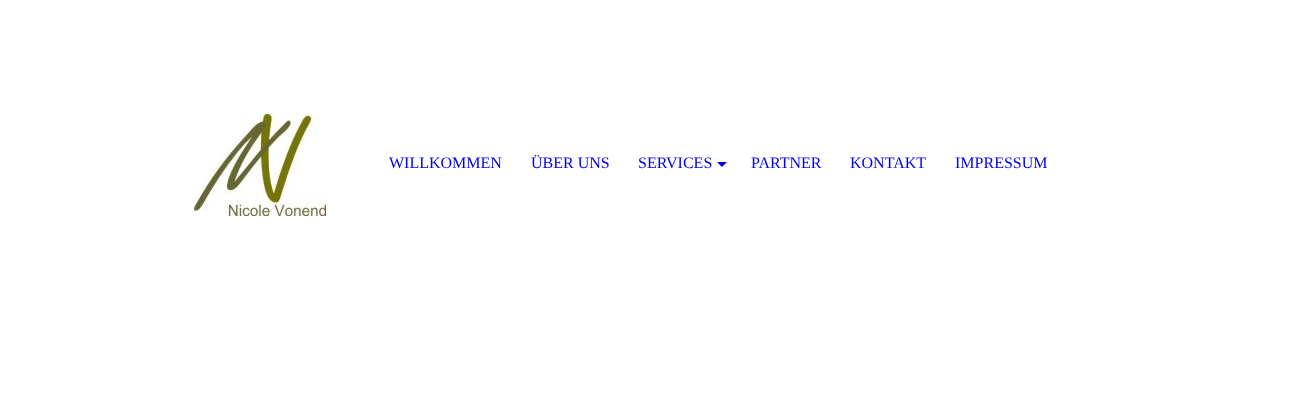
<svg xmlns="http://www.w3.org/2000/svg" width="1309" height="395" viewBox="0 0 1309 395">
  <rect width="100%" height="100%" fill="#ffffff"/>
  <image x="194" y="114" width="132" height="102" href="img1.png"/>
  <text x="389" y="168" font-family="Liberation Serif" font-size="16" fill="#0000ee">WILLKOMMEN</text>
  <text x="531" y="168" font-family="Liberation Serif" font-size="16" fill="#0000ee">ÜBER UNS</text>
  <text x="638" y="168" font-family="Liberation Serif" font-size="16" fill="#0000ee">SERVICES</text>
  <path d="M717 162H727L722 167Z" fill="#0000ee"/>
  <text x="751" y="168" font-family="Liberation Serif" font-size="16" fill="#0000ee">PARTNER</text>
  <text x="850" y="168" font-family="Liberation Serif" font-size="16" fill="#0000ee">KONTAKT</text>
  <text x="955" y="168" font-family="Liberation Serif" font-size="16" fill="#0000ee">IMPRESSUM</text>
</svg>
